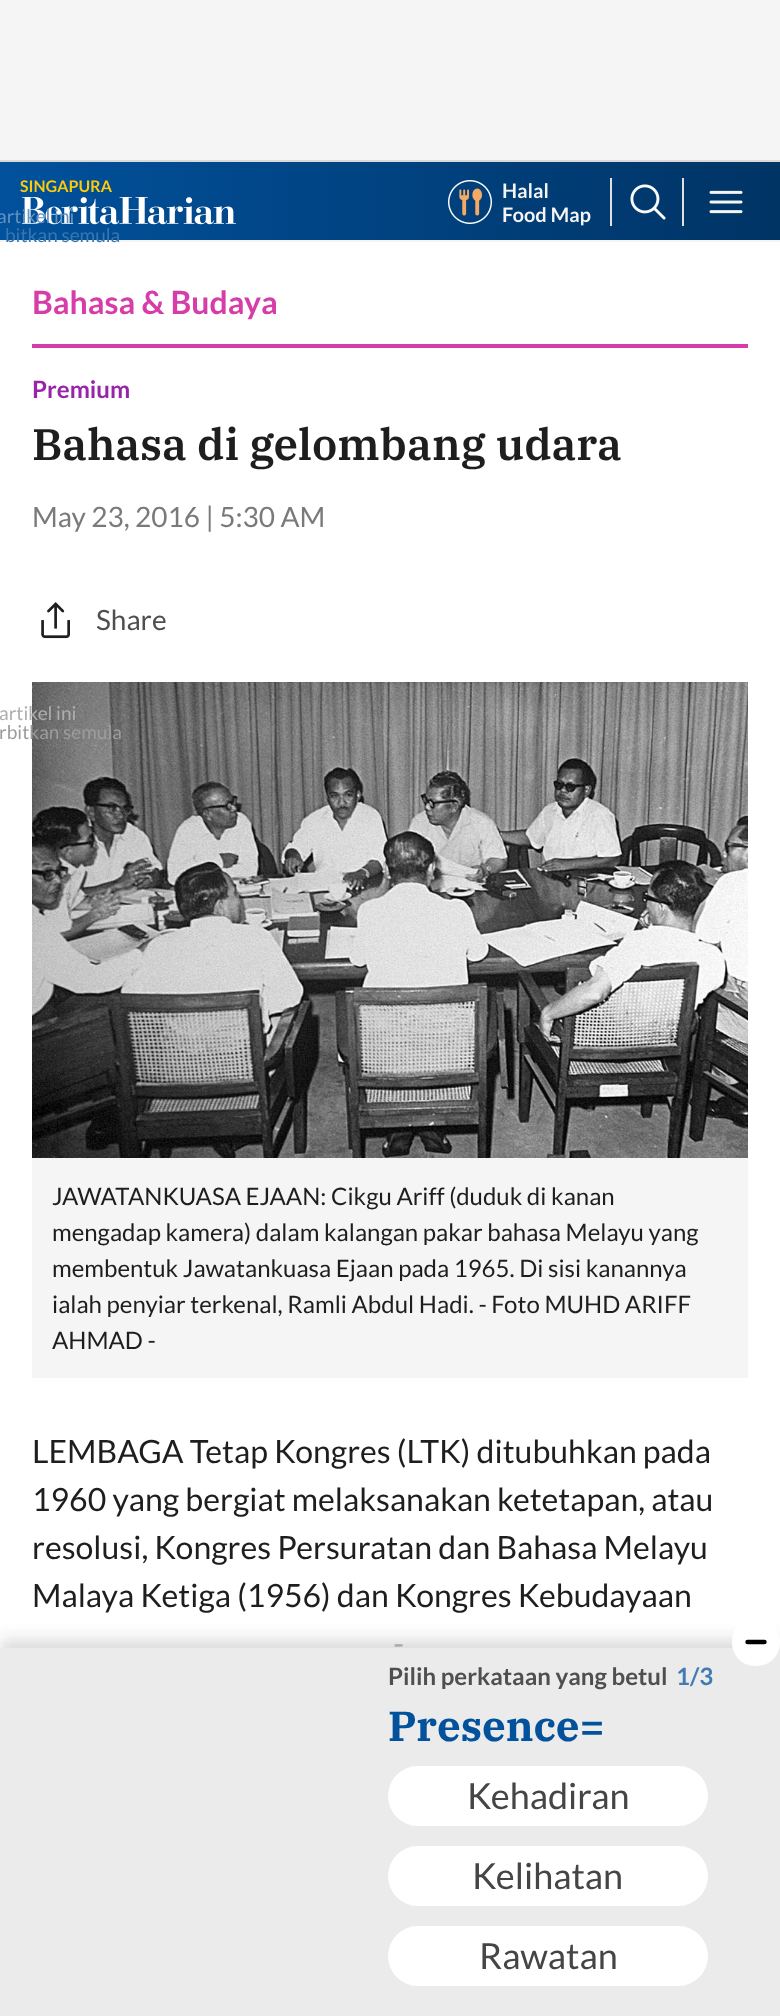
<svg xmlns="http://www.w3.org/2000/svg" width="780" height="2016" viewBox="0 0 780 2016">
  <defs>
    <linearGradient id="g1" gradientUnits="userSpaceOnUse" x1="0" y1="201" x2="780" y2="201"><stop offset="0" stop-color="#01519c"/><stop offset="1" stop-color="#003465"/></linearGradient>
    <filter id="blur1" x="-50%" y="-200%" width="200%" height="500%"><feGaussianBlur stdDeviation="8"/></filter>
  </defs>
  <rect width="100%" height="100%" fill="#ffffff"/>
  <rect x="0" y="0" width="780" height="160" fill="#f5f5f5"/>
  <rect x="0" y="160" width="780" height="2" fill="#d9d9d9"/>
  <rect x="0" y="162" width="780" height="78" fill="url(#g1)"/>
  <image x="20" y="180" width="216" height="45" href="img1.png"/>
  <image x="448" y="180" width="143" height="46" href="img2.png"/>
  <rect x="682" y="178" width="2" height="48" fill="#e1e1e1"/>
  <rect x="610" y="178" width="2" height="48" fill="#e1e1e1"/>
  <image x="630" y="184" width="36" height="36" href="img3.png"/>
  <image x="709" y="190" width="34" height="24" href="img4.png"/>
  <rect x="0" y="240" width="780" height="2" fill="#f5f5f5"/>
  <text x="-3" y="223" font-family="Lato" font-size="19" fill="#6192c0">artikel ini</text>
  <text x="5" y="242" font-family="Lato" font-size="19" fill="#3a76ae">bitkan semula</text>
  <rect x="32" y="344" width="716" height="4" fill="#d63da8"/>
  <text x="32" y="314" font-family="Lato" font-size="32" font-weight="bold" fill="#d63da8">Bahasa &amp; Budaya</text>
  <text x="32" y="398" font-family="Lato" font-size="24" font-weight="bold" fill="#9724a9">Premium</text>
  <text x="32" y="460" font-family="IBM Plex Serif" font-size="44" font-weight="600" fill="#1e1e1e">Bahasa di gelombang udara</text>
  <text x="32" y="527" font-family="Lato" font-size="28" fill="#7a7a7a">May 23, 2016 | 5:30 AM</text>
  <image x="41" y="602" width="29" height="37" href="img5.png"/>
  <text x="96" y="630" font-family="Lato" font-size="28" fill="#4f4f4f">Share</text>
  <image x="32" y="682" width="716" height="476" href="img6.png"/>
  <text x="-1" y="720" font-family="Lato" font-size="19" fill="#aeaeae">artikel ini</text>
  <text x="-1" y="739" font-family="Lato" font-size="19" fill="#9c9c9c">rbitkan semula</text>
  <rect x="32" y="1158" width="716" height="220" fill="#f5f5f5"/>
  <text x="52" y="1205" font-family="Lato" font-size="24" fill="#1e1e1e">JAWATANKUASA EJAAN: Cikgu Ariff (duduk di kanan</text>
  <text x="52" y="1241" font-family="Lato" font-size="24" fill="#1e1e1e">mengadap kamera) dalam kalangan pakar bahasa Melayu yang</text>
  <text x="52" y="1277" font-family="Lato" font-size="24" fill="#1e1e1e">membentuk Jawatankuasa Ejaan pada 1965. Di sisi kanannya</text>
  <text x="52" y="1313" font-family="Lato" font-size="24" fill="#1e1e1e">ialah penyiar terkenal, Ramli Abdul Hadi. - Foto MUHD ARIFF</text>
  <text x="52" y="1349" font-family="Lato" font-size="24" fill="#1e1e1e">AHMAD -</text>
  <text x="32" y="1463" font-family="Lato" font-size="32" fill="#1e1e1e">LEMBAGA Tetap Kongres (LTK) ditubuhkan pada</text>
  <text x="32" y="1511" font-family="Lato" font-size="32" fill="#1e1e1e">1960 yang bergiat melaksanakan ketetapan, atau</text>
  <text x="32" y="1559" font-family="Lato" font-size="32" fill="#1e1e1e">resolusi, Kongres Persuratan dan Bahasa Melayu</text>
  <text x="32" y="1607" font-family="Lato" font-size="32" fill="#1e1e1e">Malaya Ketiga (1956) dan Kongres Kebudayaan</text>
  <text x="393" y="1655" font-family="Lato" font-size="32" fill="#bcbcbc">-</text>
  <rect x="0" y="1640" width="780" height="368" fill="#454545" fill-opacity="0.2" filter="url(#blur1)"/>
  <rect x="0" y="1648" width="780" height="368" fill="#ebebeb"/>
  <path d="M756 1666C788 1666 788 1618 756 1618C724 1618 724 1666 756 1666Z" fill="#ffffff"/>
  <path d="M747.5 1642H764.5" fill="none" stroke="#000000" stroke-width="4.4" stroke-linecap="round"/>
  <text x="388" y="1685" font-family="Lato" font-size="24" font-weight="bold" fill="#4f4f4f">Pilih perkataan yang betul</text>
  <text x="676" y="1685" font-family="Lato" font-size="24" font-weight="bold" fill="#447ab2">1/3</text>
  <text x="388" y="1741" font-family="IBM Plex Serif" font-size="42" font-weight="bold" fill="#01519c">Presence=</text>
  <rect x="388" y="1766" width="320" height="60" rx="30" fill="#ffffff"/>
  <text x="467" y="1809" font-family="Lato" font-size="36" fill="#454545">Kehadiran</text>
  <rect x="388" y="1846" width="320" height="60" rx="30" fill="#ffffff"/>
  <text x="472" y="1889" font-family="Lato" font-size="36" fill="#454545">Kelihatan</text>
  <rect x="388" y="1926" width="320" height="60" rx="30" fill="#ffffff"/>
  <text x="479" y="1969" font-family="Lato" font-size="36" fill="#454545">Rawatan</text>
</svg>
